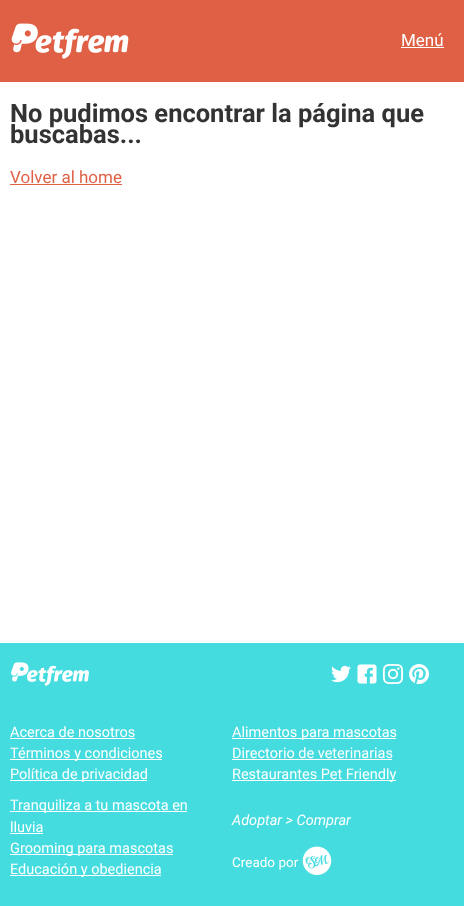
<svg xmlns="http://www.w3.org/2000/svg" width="464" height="906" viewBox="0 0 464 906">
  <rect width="100%" height="100%" fill="#ffffff"/>
  <rect x="0" y="0" width="464" height="82" fill="#e06045"/>
  <image x="11" y="23" width="118" height="36" href="img1.png"/>
  <text x="401" y="46" font-family="Roboto" font-size="17" fill="#ffffff">Menú</text>
  <rect x="401" y="47" width="43" height="1" fill="#ffffff"/>
  <text x="10" y="122" font-family="Roboto" font-size="25.5" font-weight="bold" fill="#333333">No pudimos encontrar la página que</text>
  <text x="10" y="143" font-family="Roboto" font-size="25.5" font-weight="bold" fill="#333333">buscabas...</text>
  <text x="10" y="183" font-family="Roboto" font-size="17" fill="#e06045">Volver al home</text>
  <rect x="10" y="184" width="112" height="1" fill="#e06045"/>
  <rect x="0" y="643" width="464" height="263" fill="#45dce0"/>
  <image x="11" y="662" width="78" height="24" href="img2.png"/>
  <image x="331" y="665" width="20" height="18" href="img3.png"/>
  <image x="357" y="664" width="20" height="20" href="img4.png"/>
  <image x="383" y="664" width="20" height="20" href="img5.png"/>
  <image x="409" y="664" width="20" height="20" href="img6.png"/>
  <text x="10" y="737" font-family="Roboto" font-size="14.5" fill="#ffffff">Acerca de nosotros</text>
  <rect x="10" y="738" width="125" height="1" fill="#ffffff"/>
  <rect x="10" y="759" width="152" height="1" fill="#ffffff"/>
  <text x="10" y="758" font-family="Roboto" font-size="14.5" fill="#ffffff">Términos y condiciones</text>
  <rect x="10" y="780" width="137" height="1" fill="#ffffff"/>
  <text x="10" y="779" font-family="Roboto" font-size="14.5" fill="#ffffff">Política de privacidad</text>
  <rect x="232" y="738" width="164" height="1" fill="#ffffff"/>
  <text x="232" y="737" font-family="Roboto" font-size="14.5" fill="#ffffff">Alimentos para mascotas</text>
  <text x="232" y="758" font-family="Roboto" font-size="14.5" fill="#ffffff">Directorio de veterinarias</text>
  <rect x="232" y="759" width="160" height="1" fill="#ffffff"/>
  <rect x="232" y="780" width="164" height="1" fill="#ffffff"/>
  <text x="232" y="779" font-family="Roboto" font-size="14.5" fill="#ffffff">Restaurantes Pet Friendly</text>
  <rect x="10" y="811" width="177" height="1" fill="#ffffff"/>
  <text x="10" y="810" font-family="Roboto" font-size="14.5" fill="#ffffff">Tranquiliza a tu mascota en</text>
  <text x="10" y="832" font-family="Roboto" font-size="14.5" fill="#ffffff">lluvia</text>
  <rect x="10" y="833" width="33" height="1" fill="#ffffff"/>
  <rect x="10" y="854" width="163" height="1" fill="#ffffff"/>
  <text x="10" y="853" font-family="Roboto" font-size="14.5" fill="#ffffff">Grooming para mascotas</text>
  <rect x="10" y="875" width="151" height="1" fill="#ffffff"/>
  <text x="10" y="874" font-family="Roboto" font-size="14.5" fill="#ffffff">Educación y obediencia</text>
  <text x="232" y="825" font-family="Roboto" font-size="14.5" font-style="italic" fill="#ffffff">Adoptar &gt; Comprar</text>
  <text x="232" y="867" font-family="Roboto" font-size="13.5" fill="#ffffff">Creado por</text>
  <image x="302" y="846" width="30" height="29" href="img7.png"/>
</svg>
